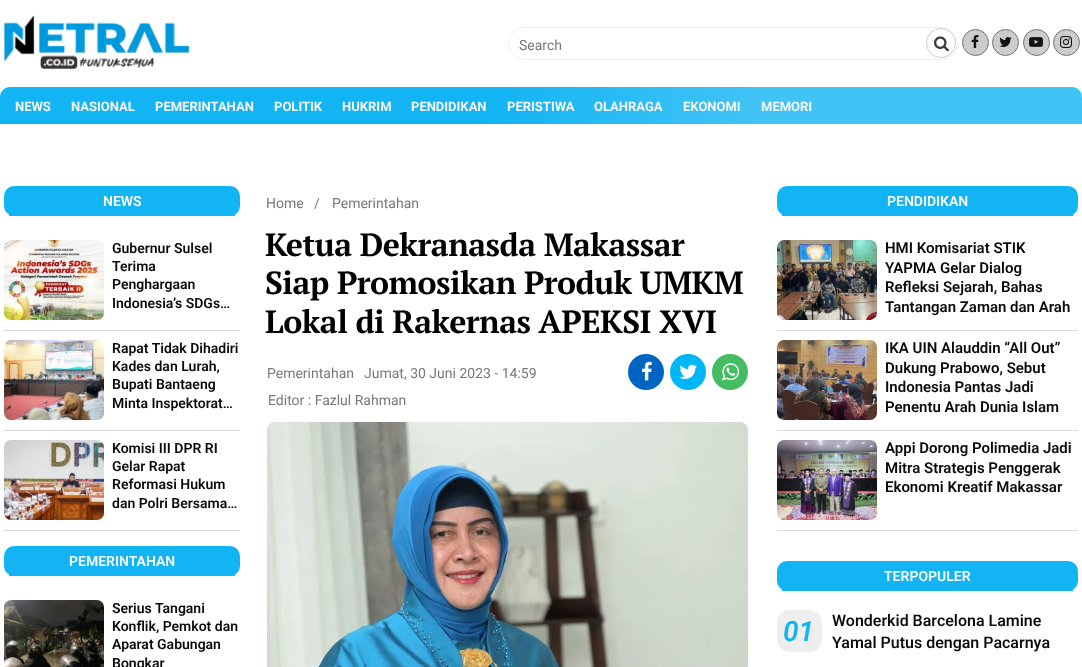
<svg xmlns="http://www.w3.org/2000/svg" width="1082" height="667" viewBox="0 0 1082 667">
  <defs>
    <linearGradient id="g1" gradientUnits="userSpaceOnUse" x1="0" y1="106" x2="1082" y2="105"><stop offset="0.45" stop-color="#12b4f3"/><stop offset="0.7" stop-color="#42c3f6"/></linearGradient>
  </defs>
  <rect width="100%" height="100%" fill="#ffffff"/>
  <image x="3" y="15" width="187" height="55" href="img1.png"/>
  <rect x="508.5" y="27.5" width="449" height="32" rx="16" fill="none" stroke="#ededed"/>
  <text x="519" y="50" font-family="Roboto" font-size="14" fill="#787878">Search</text>
  <circle cx="941" cy="43" r="14.5" fill="#ffffff" stroke="#cccccc"/>
  <image x="934" y="36" width="15" height="16" href="img2.png"/>
  <circle cx="975.5" cy="42.5" r="13" fill="#cccccc" stroke="#737373"/>
  <image x="971" y="35" width="8" height="13" href="img3.png"/>
  <circle cx="1005.5" cy="42.5" r="13" fill="#cccccc" stroke="#737373"/>
  <image x="999" y="37" width="13" height="10" href="img4.png"/>
  <circle cx="1036.5" cy="42.5" r="13" fill="#cccccc" stroke="#737373"/>
  <image x="1029" y="37" width="14" height="10" href="img5.png"/>
  <circle cx="1066.5" cy="42.5" r="13" fill="#cccccc" stroke="#737373"/>
  <image x="1060" y="36" width="12" height="12" href="img6.png"/>
  <path d="M10 87H1072C1077.5 87 1082 91.5 1082 97V124H0V97C0 91.5 4.5 87 10 87Z" fill="url(#g1)"/>
  <text x="15" y="111" font-family="Roboto" font-size="13" font-weight="bold" fill="#f7f7f7">NEWS</text>
  <text x="71" y="111" font-family="Roboto" font-size="13" font-weight="bold" fill="#f7f7f7">NASIONAL</text>
  <text x="155" y="111" font-family="Roboto" font-size="13" font-weight="bold" fill="#f7f7f7">PEMERINTAHAN</text>
  <text x="274" y="111" font-family="Roboto" font-size="13" font-weight="bold" fill="#f7f7f7">POLITIK</text>
  <text x="342" y="111" font-family="Roboto" font-size="13" font-weight="bold" fill="#f7f7f7">HUKRIM</text>
  <text x="411" y="111" font-family="Roboto" font-size="13" font-weight="bold" fill="#f7f7f7">PENDIDIKAN</text>
  <text x="507" y="111" font-family="Roboto" font-size="13" font-weight="bold" fill="#f7f7f7">PERISTIWA</text>
  <text x="594" y="111" font-family="Roboto" font-size="13" font-weight="bold" fill="#f7f7f7">OLAHRAGA</text>
  <text x="683" y="111" font-family="Roboto" font-size="13" font-weight="bold" fill="#f7f7f7">EKONOMI</text>
  <text x="761" y="111" font-family="Roboto" font-size="13" font-weight="bold" fill="#f7f7f7">MEMORI</text>
  <rect x="4" y="186" width="236" height="30" rx="10" fill="#12b4f3"/>
  <rect x="9" y="214" width="226" height="2" fill="#12b4f3"/>
  <text x="103" y="206" font-family="Roboto" font-size="14" font-weight="600" fill="#ffffff">NEWS</text>
  <rect x="4" y="330" width="236" height="1" fill="#dadada"/>
  <image x="4" y="240" width="100" height="80" href="img7.png"/>
  <text x="112" y="253" font-family="Roboto" font-size="14" font-weight="600" fill="#0b0b0b">Gubernur Sulsel</text>
  <text x="112" y="271" font-family="Roboto" font-size="14" font-weight="600" fill="#0b0b0b">Terima</text>
  <text x="112" y="289" font-family="Roboto" font-size="14" font-weight="600" fill="#0b0b0b">Penghargaan</text>
  <text x="112" y="308" font-family="Roboto" font-size="14" font-weight="600" fill="#0b0b0b">Indonesia’s SDGs…</text>
  <rect x="4" y="430" width="236" height="1" fill="#dadada"/>
  <image x="4" y="340" width="100" height="80" href="img8.png"/>
  <text x="112" y="353" font-family="Roboto" font-size="14" font-weight="600" fill="#0b0b0b">Rapat Tidak Dihadiri</text>
  <text x="112" y="371" font-family="Roboto" font-size="14" font-weight="600" fill="#0b0b0b">Kades dan Lurah,</text>
  <text x="112" y="389" font-family="Roboto" font-size="14" font-weight="600" fill="#0b0b0b">Bupati Bantaeng</text>
  <text x="112" y="408" font-family="Roboto" font-size="14" font-weight="600" fill="#0b0b0b">Minta Inspektorat…</text>
  <rect x="4" y="530" width="236" height="1" fill="#dadada"/>
  <image x="4" y="440" width="100" height="80" href="img9.png"/>
  <text x="112" y="453" font-family="Roboto" font-size="14" font-weight="600" fill="#0b0b0b">Komisi III DPR RI</text>
  <text x="112" y="471" font-family="Roboto" font-size="14" font-weight="600" fill="#0b0b0b">Gelar Rapat</text>
  <text x="112" y="489" font-family="Roboto" font-size="14" font-weight="600" fill="#0b0b0b">Reformasi Hukum</text>
  <text x="112" y="508" font-family="Roboto" font-size="14" font-weight="600" fill="#0b0b0b">dan Polri Bersama…</text>
  <rect x="4" y="546" width="236" height="30" rx="10" fill="#12b4f3"/>
  <rect x="9" y="574" width="226" height="2" fill="#12b4f3"/>
  <text x="69" y="566" font-family="Roboto" font-size="14" font-weight="600" fill="#ffffff">PEMERINTAHAN</text>
  <image x="4" y="600" width="100" height="67" href="img10.png"/>
  <text x="112" y="613" font-family="Roboto" font-size="14" font-weight="600" fill="#0b0b0b">Serius Tangani</text>
  <text x="112" y="631" font-family="Roboto" font-size="14" font-weight="600" fill="#0b0b0b">Konflik, Pemkot dan</text>
  <text x="112" y="649" font-family="Roboto" font-size="14" font-weight="600" fill="#0b0b0b">Aparat Gabungan</text>
  <text x="112" y="668" font-family="Roboto" font-size="14" font-weight="600" fill="#0b0b0b">Bongkar</text>
  <text x="266" y="208" font-family="Roboto" font-size="14" fill="#787878">Home</text>
  <text x="314" y="208" font-family="Roboto" font-size="14" fill="#787878">/</text>
  <text x="332" y="208" font-family="Roboto" font-size="14" fill="#787878">Pemerintahan</text>
  <text x="265" y="256" font-family="PT Serif" font-size="32" font-weight="bold" letter-spacing="-0.5" fill="#000000">Ketua Dekranasda Makassar</text>
  <text x="265" y="294" font-family="PT Serif" font-size="32" font-weight="bold" letter-spacing="-0.5" fill="#000000">Siap Promosikan Produk UMKM</text>
  <text x="265" y="333" font-family="PT Serif" font-size="32" font-weight="bold" letter-spacing="-0.5" fill="#000000">Lokal di Rakernas APEKSI XVI</text>
  <text x="267" y="378" font-family="Roboto" font-size="14" fill="#787878">Pemerintahan</text>
  <text x="364" y="378" font-family="Roboto" font-size="14" fill="#787878">Jumat, 30 Juni 2023 - 14:59</text>
  <circle cx="646" cy="372" r="18" fill="#0064c2"/>
  <image x="642" y="361" width="10" height="20" href="img11.png"/>
  <circle cx="688" cy="372" r="18" fill="#00b6f9"/>
  <image x="679" y="364" width="18" height="15" href="img12.png"/>
  <circle cx="730" cy="372" r="18" fill="#43bc62"/>
  <image x="722" y="363" width="18" height="18" href="img13.png"/>
  <text x="268" y="405" font-family="Roboto" font-size="14" fill="#787878">Editor : Fazlul Rahman</text>
  <image x="267" y="422" width="481" height="245" href="img14.png"/>
  <rect x="777" y="186" width="301" height="30" rx="10" fill="#12b4f3"/>
  <rect x="782" y="214" width="291" height="2" fill="#12b4f3"/>
  <text x="887" y="206" font-family="Roboto" font-size="14" font-weight="600" fill="#ffffff">PENDIDIKAN</text>
  <rect x="777" y="330" width="301" height="1" fill="#dadada"/>
  <image x="777" y="240" width="100" height="80" href="img15.png"/>
  <text x="885" y="253" font-family="Roboto" font-size="15" font-weight="600" fill="#0b0b0b">HMI Komisariat STIK</text>
  <text x="885" y="273" font-family="Roboto" font-size="15" font-weight="600" fill="#0b0b0b">YAPMA Gelar Dialog</text>
  <text x="885" y="292" font-family="Roboto" font-size="15" font-weight="600" fill="#0b0b0b">Refleksi Sejarah, Bahas</text>
  <text x="885" y="312" font-family="Roboto" font-size="15" font-weight="600" fill="#0b0b0b">Tantangan Zaman dan Arah</text>
  <rect x="777" y="430" width="301" height="1" fill="#dadada"/>
  <image x="777" y="340" width="100" height="80" href="img16.png"/>
  <text x="885" y="353" font-family="Roboto" font-size="15" font-weight="600" fill="#0b0b0b">IKA UIN Alauddin “All Out”</text>
  <text x="885" y="373" font-family="Roboto" font-size="15" font-weight="600" fill="#0b0b0b">Dukung Prabowo, Sebut</text>
  <text x="885" y="392" font-family="Roboto" font-size="15" font-weight="600" fill="#0b0b0b">Indonesia Pantas Jadi</text>
  <text x="885" y="412" font-family="Roboto" font-size="15" font-weight="600" fill="#0b0b0b">Penentu Arah Dunia Islam</text>
  <rect x="777" y="530" width="301" height="1" fill="#dadada"/>
  <image x="777" y="440" width="100" height="80" href="img17.png"/>
  <text x="885" y="453" font-family="Roboto" font-size="15" font-weight="600" fill="#0b0b0b">Appi Dorong Polimedia Jadi</text>
  <text x="885" y="473" font-family="Roboto" font-size="15" font-weight="600" fill="#0b0b0b">Mitra Strategis Penggerak</text>
  <text x="885" y="492" font-family="Roboto" font-size="15" font-weight="600" fill="#0b0b0b">Ekonomi Kreatif Makassar</text>
  <rect x="777" y="561" width="301" height="30" rx="10" fill="#12b4f3"/>
  <rect x="782" y="589" width="291" height="2" fill="#12b4f3"/>
  <text x="884" y="581" font-family="Roboto" font-size="14" font-weight="600" fill="#ffffff">TERPOPULER</text>
  <rect x="777" y="610" width="45" height="42" rx="13" fill="#eeeeee"/>
  <text x="783" y="641" font-family="Roboto" font-size="28" font-weight="600" font-style="italic" fill="#12b4f3">01</text>
  <text x="832" y="626" font-family="Roboto" font-size="16" font-weight="500" fill="#0b0b0b">Wonderkid Barcelona Lamine</text>
  <text x="832" y="648" font-family="Roboto" font-size="16" font-weight="500" fill="#0b0b0b">Yamal Putus dengan Pacarnya</text>
</svg>
